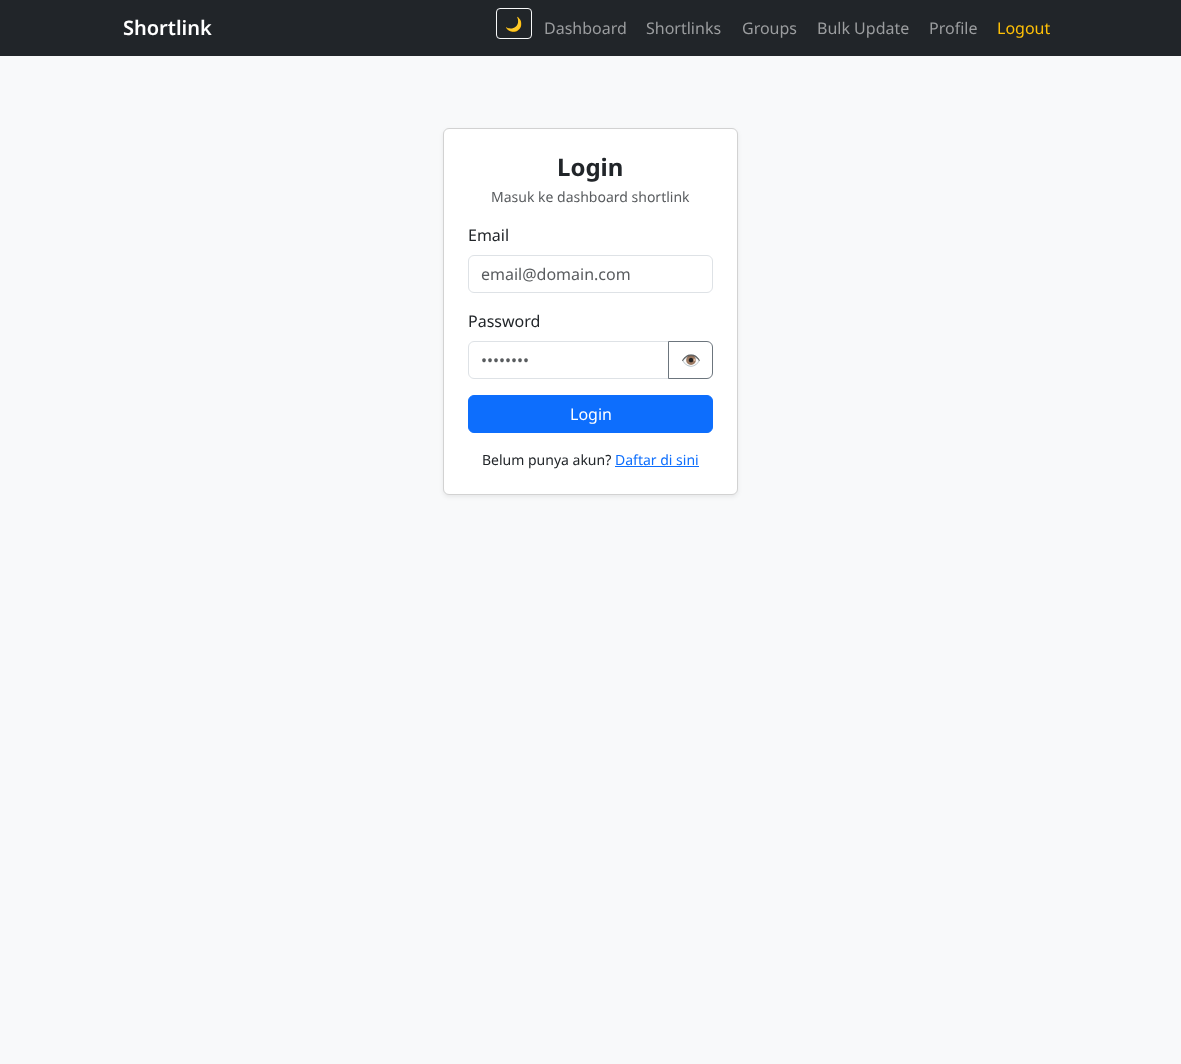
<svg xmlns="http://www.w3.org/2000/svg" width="1181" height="1064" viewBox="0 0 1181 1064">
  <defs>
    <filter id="blur1" x="-50%" y="-200%" width="200%" height="500%"><feGaussianBlur stdDeviation="2"/></filter>
  </defs>
  <rect width="100%" height="100%" fill="#f8f9fa"/>
  <rect x="0" y="0" width="1181" height="56" fill="#212529"/>
  <text x="123" y="35" font-family="Noto Sans" font-size="20" font-weight="600" fill="#ffffff">Shortlink</text>
  <rect x="496.5" y="8.5" width="35" height="30" rx="3.5" fill="none" stroke="#f8f9fa"/>
  <text x="505" y="29" font-family="Noto Color Emoji" font-size="14" fill="#f8f9fa">🌙</text>
  <text x="544" y="34" font-family="Noto Sans" font-size="16" fill="#9b9d9f">Dashboard</text>
  <text x="646" y="34" font-family="Noto Sans" font-size="16" fill="#9b9d9f">Shortlinks</text>
  <text x="742" y="34" font-family="Noto Sans" font-size="16" fill="#9b9d9f">Groups</text>
  <text x="817" y="34" font-family="Noto Sans" font-size="16" fill="#9b9d9f">Bulk Update</text>
  <text x="929" y="34" font-family="Noto Sans" font-size="16" fill="#9b9d9f">Profile</text>
  <text x="997" y="34" font-family="Noto Sans" font-size="16" fill="#ffc107">Logout</text>
  <rect x="443" y="130" width="295" height="367" rx="6" fill="#000000" fill-opacity="0.07" filter="url(#blur1)"/>
  <rect x="443.5" y="128.5" width="294" height="366" rx="5.5" fill="#ffffff" stroke="#d2d2d2"/>
  <text x="557" y="176" font-family="Noto Sans" font-size="24" font-weight="bold" fill="#212529">Login</text>
  <text x="491" y="202" font-family="Noto Sans" font-size="14" fill="#595c5f">Masuk ke dashboard shortlink</text>
  <text x="468" y="241" font-family="Noto Sans" font-size="16" fill="#212529">Email</text>
  <rect x="468.5" y="255.5" width="244" height="37" rx="5.5" fill="none" stroke="#dee2e6"/>
  <text x="481" y="280" font-family="Noto Sans" font-size="16" fill="#595c5f">email@domain.com</text>
  <text x="468" y="327" font-family="Noto Sans" font-size="16" fill="#212529">Password</text>
  <path d="M474 341.5H668.5V378.5H474C471 378.5 468.5 376 468.5 373V347C468.5 344 471 341.5 474 341.5Z" fill="none" stroke="#dee2e6"/>
  <text x="481" y="366" font-family="Noto Sans" font-size="16" fill="#595c5f">••••••••</text>
  <path d="M668.5 341.5H707C710 341.5 712.5 344 712.5 347V373C712.5 376 710 378.5 707 378.5H668.5Z" fill="none" stroke="#6c757d"/>
  <text x="681" y="366" font-family="Noto Color Emoji" font-size="16" fill="#6c757d">👁</text>
  <rect x="468.5" y="395.5" width="244" height="37" rx="5.5" fill="#0d6efd" stroke="#0d6efd"/>
  <text x="570" y="420" font-family="Noto Sans" font-size="16" fill="#ffffff">Login</text>
  <text x="482" y="465" font-family="Noto Sans" font-size="14" fill="#212529">Belum punya akun?</text>
  <text x="615" y="465" font-family="Noto Sans" font-size="14" fill="#0d6efd">Daftar di sini</text>
  <rect x="615" y="466" width="84" height="1" fill="#0d6efd"/>
</svg>
